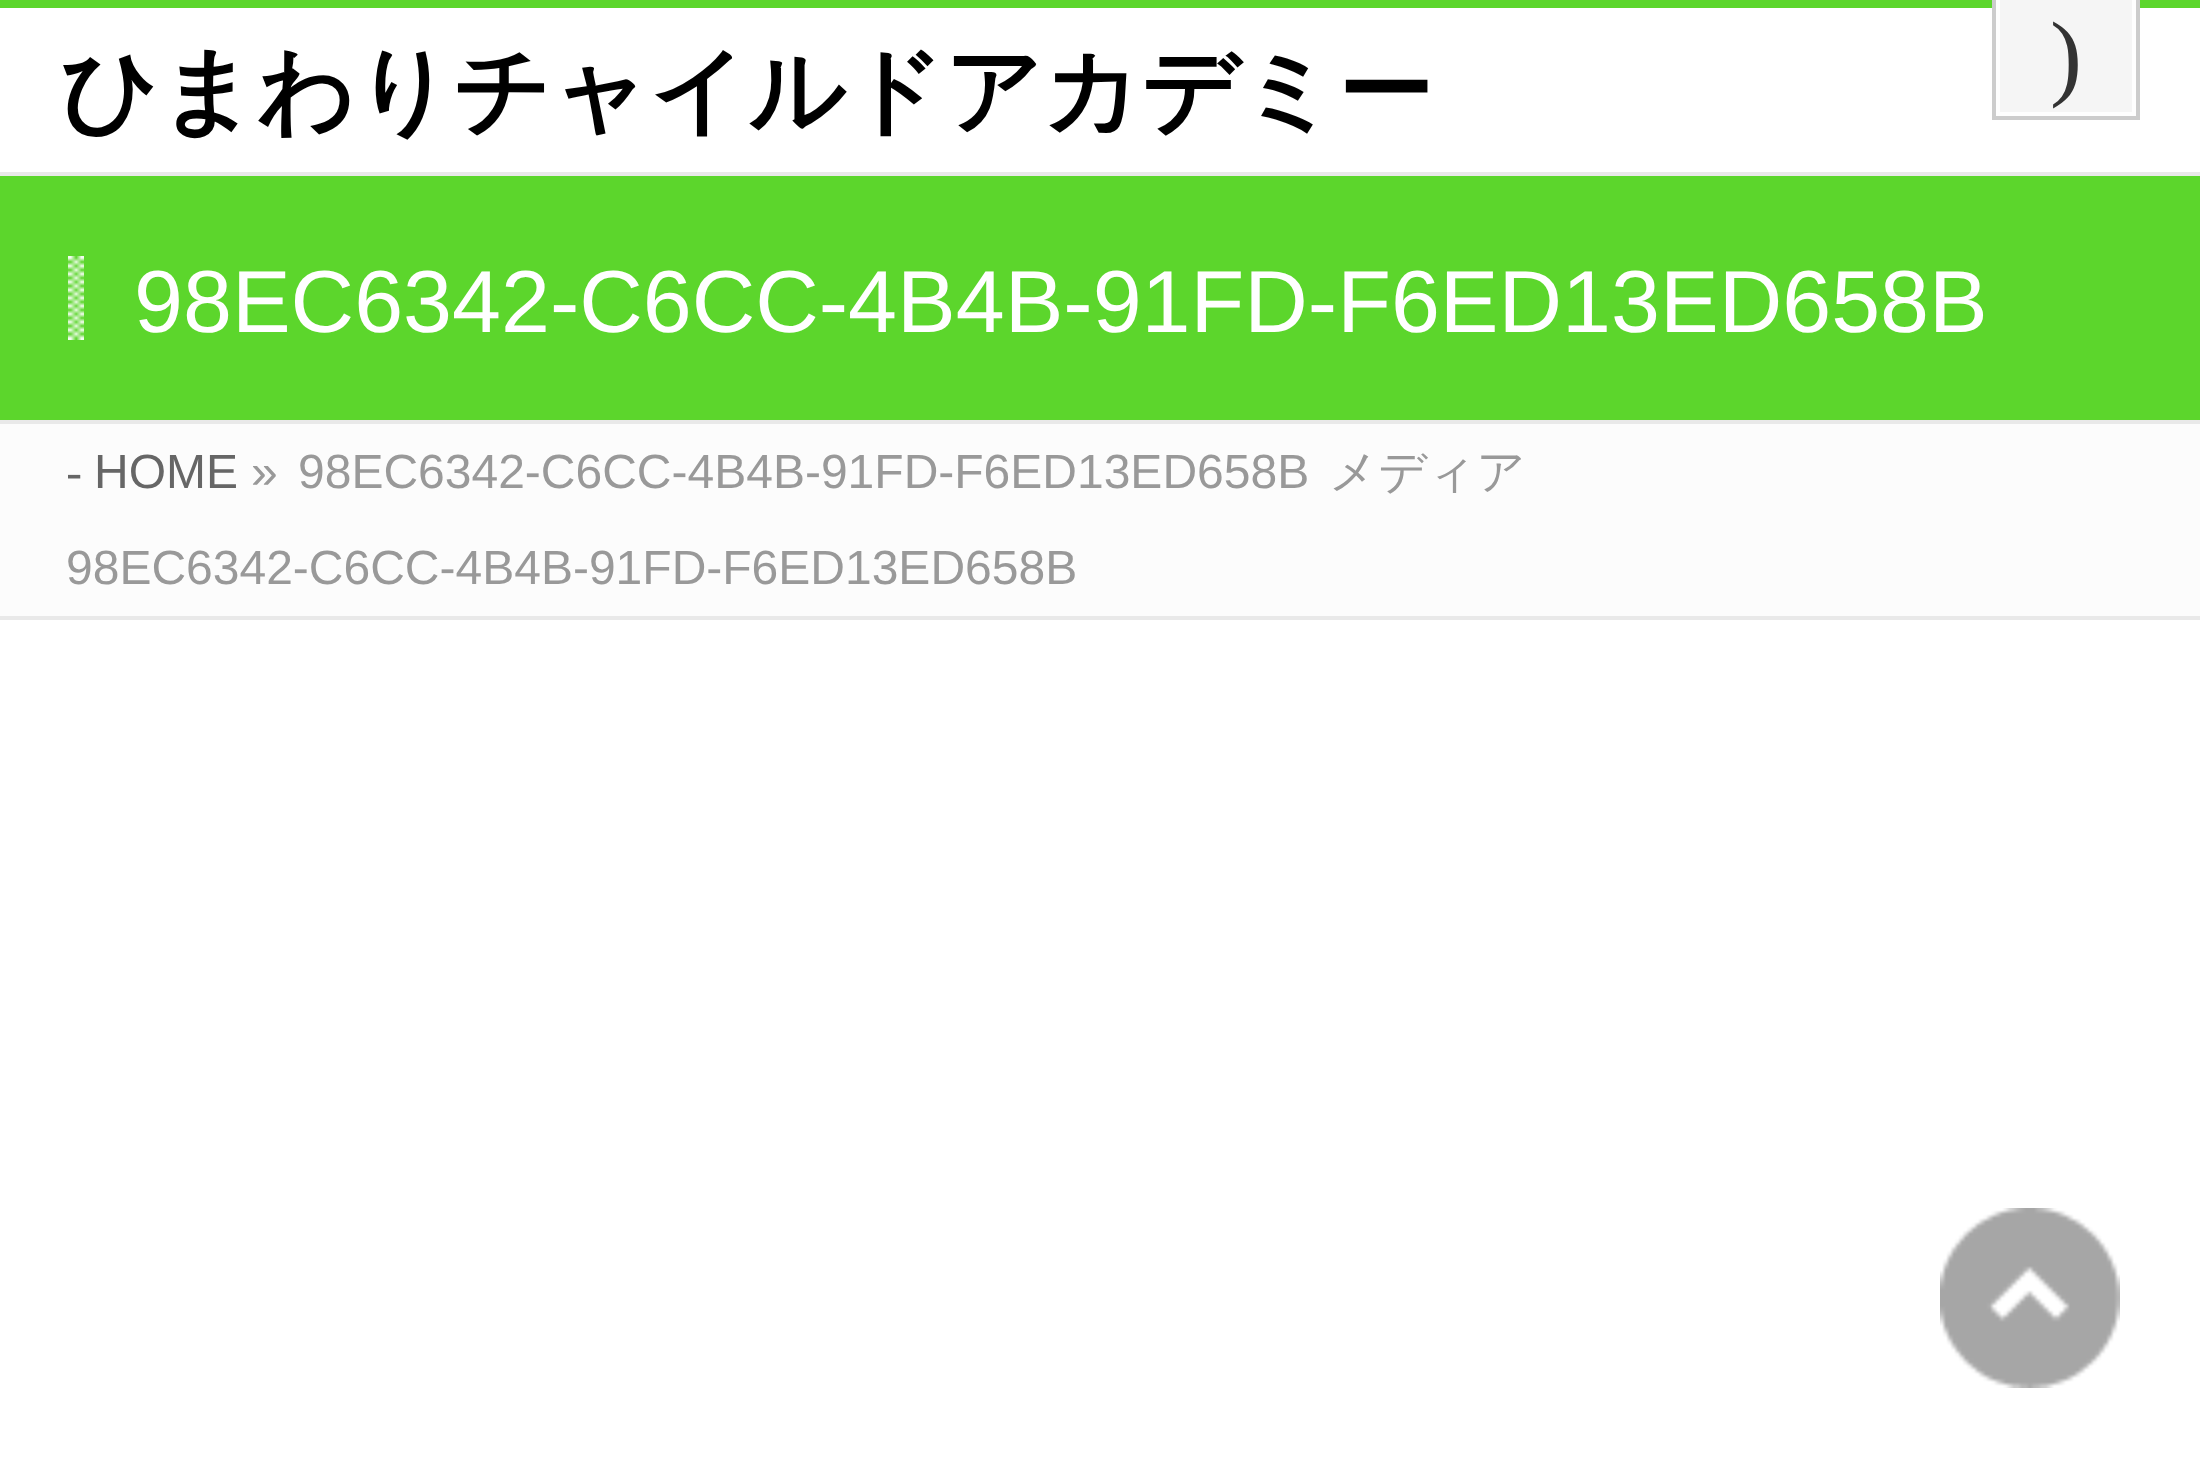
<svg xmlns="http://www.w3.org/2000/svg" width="2200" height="1467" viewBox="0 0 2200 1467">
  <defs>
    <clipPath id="clip1"><rect x="68" y="424" width="2068" height="192"/></clipPath>
  </defs>
  <rect width="100%" height="100%" fill="#ffffff"/>
  <rect x="0" y="0" width="2200" height="8" fill="#5cd62c"/>
  <text x="60" y="124" font-family="WenQuanYi Zen Hei" font-size="96" font-weight="bold" fill="#000000">ひまわりチャイルドアカデミー</text>
  <rect x="1998" y="-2" width="136" height="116" fill="#f5f5f5" stroke="#fefefe" stroke-width="4"/>
  <rect x="1994" y="-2" width="144" height="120" fill="none" stroke="#cccccc" stroke-width="4"/>
  <text x="2050" y="88" font-family="Liberation Serif" font-size="96" fill="#333333">)</text>
  <rect x="0" y="176" width="2200" height="244" fill="#5cd62c"/>
  <rect x="0" y="172" width="2200" height="4" fill="#e9e9e9"/>
  <rect x="0" y="420" width="2200" height="4" fill="#e9e9e9"/>
  <image x="68" y="256" width="16" height="84" href="img1.png"/>
  <text x="134" y="332" font-family="Liberation Sans" font-size="88" fill="#ffffff">98EC6342-C6CC-4B4B-91FD-F6ED13ED658B</text>
  <rect x="0" y="424" width="2200" height="192" fill="#fcfcfc"/>
  <g clip-path="url(#clip1)">
    <text x="66" y="488" font-family="Liberation Serif" font-size="48" fill="#666666">-</text>
  </g>
  <text x="94" y="488" font-family="Liberation Sans" font-size="48" fill="#666666">HOME</text>
  <text x="251" y="488" font-family="Liberation Sans" font-size="48" fill="#999999">»</text>
  <text x="298" y="488" font-family="Liberation Sans" font-size="48" fill="#999999">98EC6342-C6CC-4B4B-91FD-F6ED13ED658B</text>
  <text x="1329" y="488" font-family="WenQuanYi Zen Hei" font-size="48" font-weight="500" fill="#999999">メディア</text>
  <text x="66" y="584" font-family="Liberation Sans" font-size="48" fill="#999999">98EC6342-C6CC-4B4B-91FD-F6ED13ED658B</text>
  <rect x="0" y="616" width="2200" height="4" fill="#e9e9e9"/>
  <image x="1940" y="1208" width="180" height="180" href="img2.png"/>
</svg>
